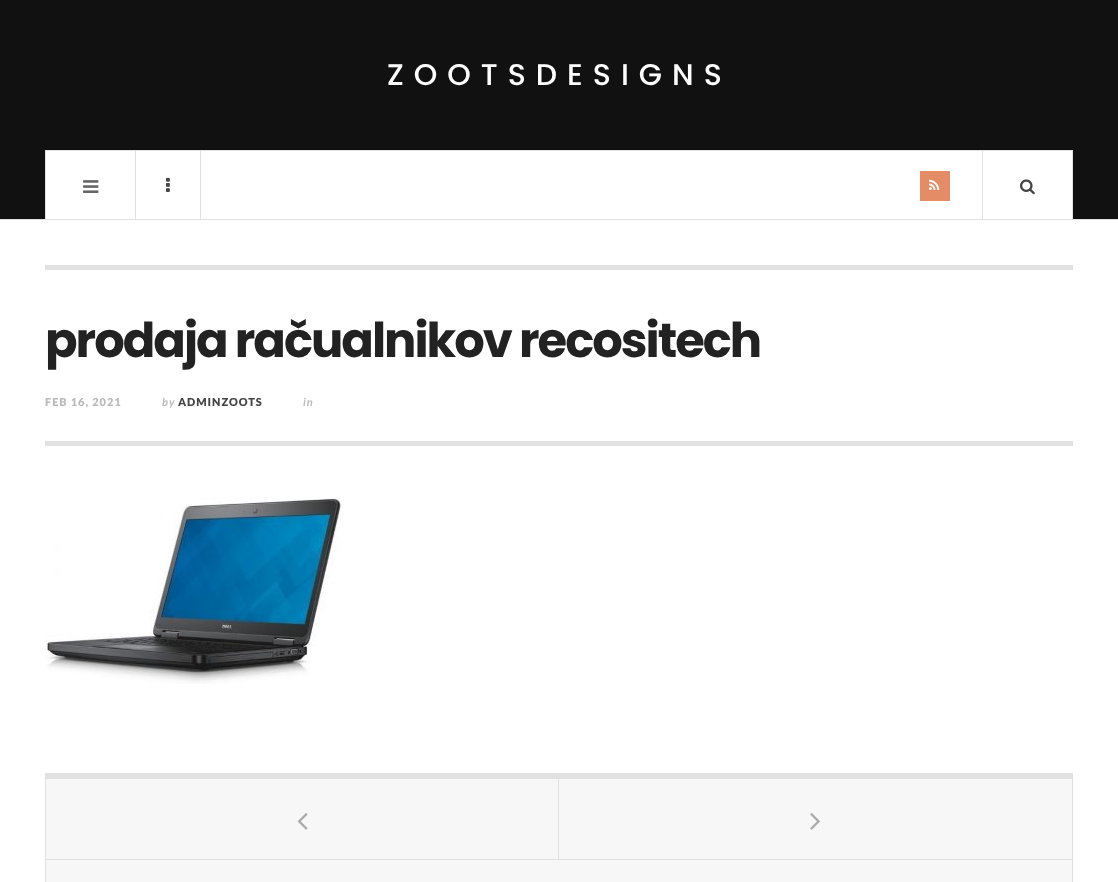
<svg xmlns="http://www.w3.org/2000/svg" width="1118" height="882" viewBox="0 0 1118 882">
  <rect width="100%" height="100%" fill="#ffffff"/>
  <rect x="0" y="0" width="1118" height="219" fill="#111111"/>
  <rect x="0" y="219" width="1118" height="1" fill="#e1e1e1"/>
  <text x="387" y="85" font-family="Poppins" font-size="30" font-weight="500" letter-spacing="10" fill="#ffffff">ZOOTSDESIGNS</text>
  <rect x="45.5" y="150.5" width="1027" height="69" fill="#ffffff" stroke="#e1e1e1"/>
  <rect x="135" y="151" width="1" height="68" fill="#e1e1e1"/>
  <image x="83" y="180" width="16" height="13" href="img1.png"/>
  <rect x="200" y="151" width="1" height="68" fill="#e1e1e1"/>
  <image x="166" y="177" width="4" height="15" href="img2.png"/>
  <rect x="920" y="171" width="30" height="30" fill="#e38c65"/>
  <image x="929" y="179" width="11" height="11" href="img3.png"/>
  <rect x="982" y="151" width="1" height="68" fill="#e1e1e1"/>
  <image x="1020" y="179" width="15" height="16" href="img4.png"/>
  <rect x="45" y="265" width="1028" height="5" fill="#e1e1e1"/>
  <text x="45" y="357" font-family="Poppins" font-size="48" font-weight="bold" letter-spacing="-2" fill="#222222">prodaja račualnikov recositech</text>
  <text x="45" y="406" font-family="Lato" font-size="11" font-weight="900" letter-spacing="1" fill="#bbbbbb">FEB 16, 2021</text>
  <text x="162" y="406" font-family="Lato" font-size="11" font-weight="bold" font-style="italic" letter-spacing="1" fill="#bbbbbb">by</text>
  <text x="178" y="406" font-family="Lato" font-size="11" font-weight="900" letter-spacing="1" fill="#444444">ADMINZOOTS</text>
  <text x="303" y="406" font-family="Lato" font-size="11" font-weight="bold" font-style="italic" letter-spacing="1" fill="#bbbbbb">in</text>
  <rect x="45" y="441" width="1028" height="5" fill="#e1e1e1"/>
  <image x="45" y="497" width="296" height="187" href="img5.png"/>
  <rect x="45" y="773" width="1028" height="5" fill="#e1e1e1"/>
  <rect x="1072" y="773" width="1" height="109" fill="#e1e1e1"/>
  <rect x="45" y="773" width="1" height="109" fill="#e1e1e1"/>
  <rect x="46" y="859" width="1026" height="1" fill="#e1e1e1"/>
  <rect x="46" y="778" width="1026" height="1" fill="#e1e1e1"/>
  <rect x="46" y="779" width="512" height="80" fill="#f7f7f7"/>
  <rect x="558" y="779" width="1" height="80" fill="#e1e1e1"/>
  <image x="297" y="813" width="11" height="17" href="img6.png"/>
  <rect x="559" y="779" width="513" height="80" fill="#f7f7f7"/>
  <image x="810" y="813" width="10" height="17" href="img7.png"/>
  <rect x="46" y="860" width="1026" height="22" fill="#f7f7f7"/>
</svg>
